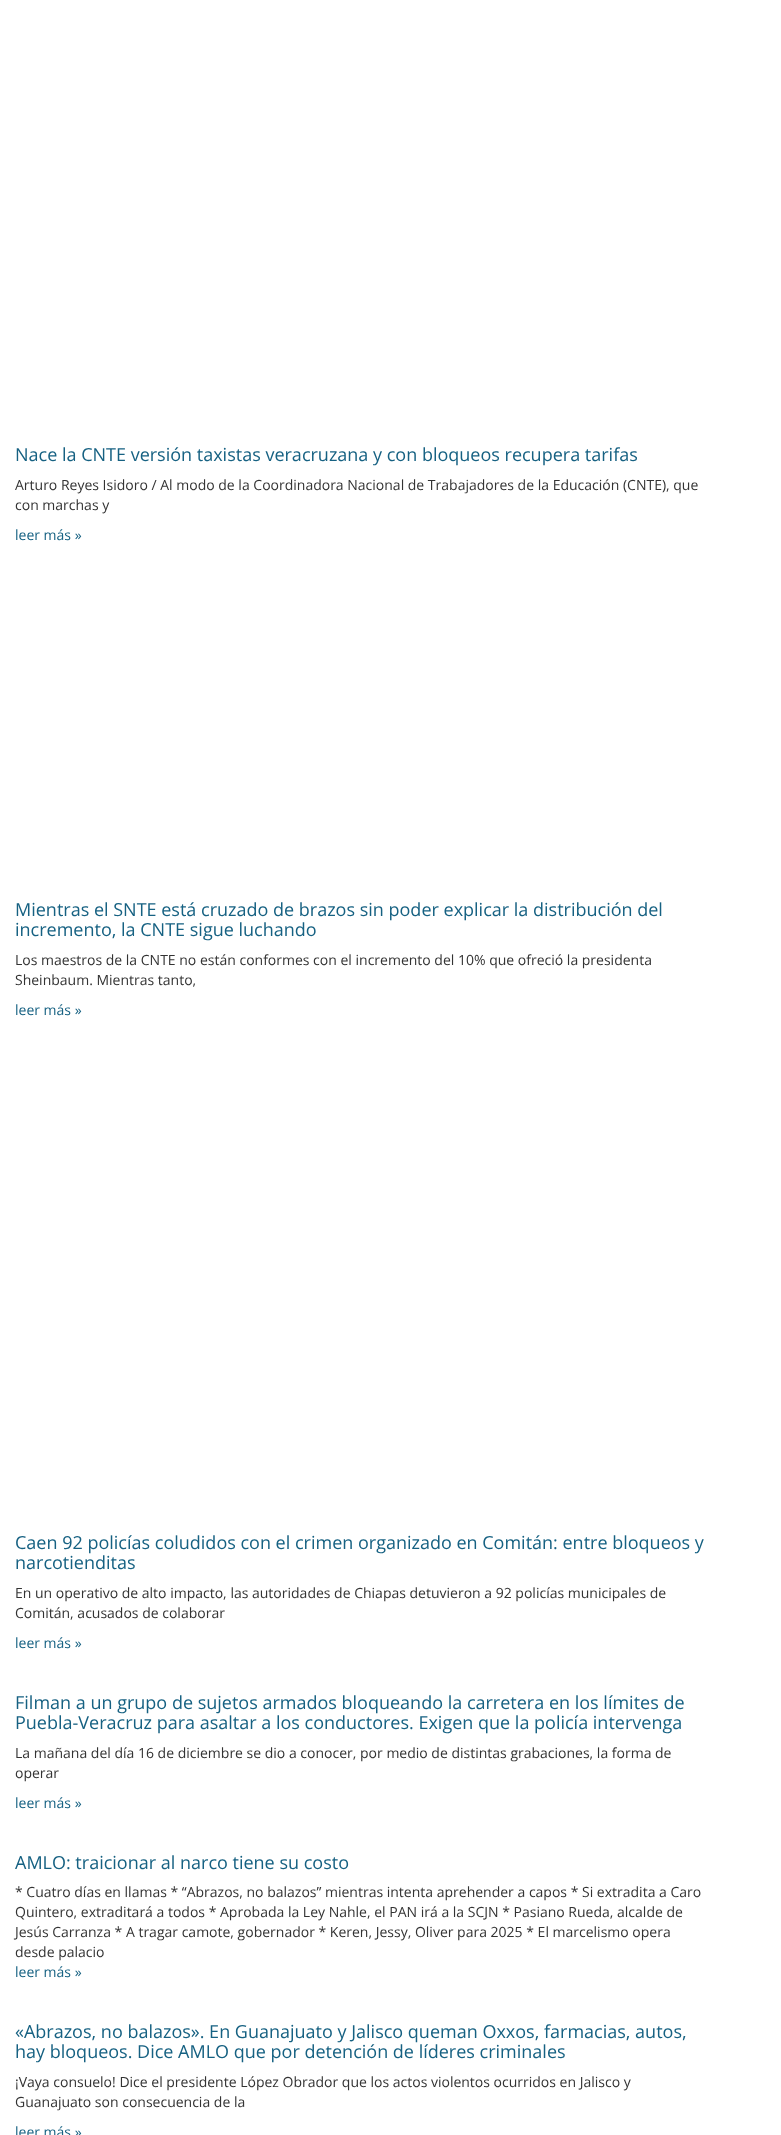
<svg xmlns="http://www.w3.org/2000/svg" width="781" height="2135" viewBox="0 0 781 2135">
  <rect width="100%" height="100%" fill="#ffffff"/>
  <text x="15" y="461" font-family="Open Sans" font-size="18" fill="#166182">Nace la CNTE versión taxistas veracruzana y con bloqueos recupera tarifas</text>
  <text x="15" y="490" font-family="Open Sans" font-size="14" fill="#333333">Arturo Reyes Isidoro / Al modo de la Coordinadora Nacional de Trabajadores de la Educación (CNTE), que</text>
  <text x="15" y="510" font-family="Open Sans" font-size="14" fill="#333333">con marchas y</text>
  <text x="15" y="540" font-family="Open Sans" font-size="14" fill="#166182">leer más »</text>
  <text x="15" y="916" font-family="Open Sans" font-size="18" fill="#166182">Mientras el SNTE está cruzado de brazos sin poder explicar la distribución del</text>
  <text x="15" y="936" font-family="Open Sans" font-size="18" fill="#166182">incremento, la CNTE sigue luchando</text>
  <text x="15" y="965" font-family="Open Sans" font-size="14" fill="#333333">Los maestros de la CNTE no están conformes con el incremento del 10% que ofreció la presidenta</text>
  <text x="15" y="985" font-family="Open Sans" font-size="14" fill="#333333">Sheinbaum. Mientras tanto,</text>
  <text x="15" y="1015" font-family="Open Sans" font-size="14" fill="#166182">leer más »</text>
  <text x="15" y="1549" font-family="Open Sans" font-size="18" fill="#166182">Caen 92 policías coludidos con el crimen organizado en Comitán: entre bloqueos y</text>
  <text x="15" y="1569" font-family="Open Sans" font-size="18" fill="#166182">narcotienditas</text>
  <text x="15" y="1598" font-family="Open Sans" font-size="14" fill="#333333">En un operativo de alto impacto, las autoridades de Chiapas detuvieron a 92 policías municipales de</text>
  <text x="15" y="1618" font-family="Open Sans" font-size="14" fill="#333333">Comitán, acusados de colaborar</text>
  <text x="15" y="1648" font-family="Open Sans" font-size="14" fill="#166182">leer más »</text>
  <text x="15" y="1709" font-family="Open Sans" font-size="18" fill="#166182">Filman a un grupo de sujetos armados bloqueando la carretera en los límites de</text>
  <text x="15" y="1729" font-family="Open Sans" font-size="18" fill="#166182">Puebla-Veracruz para asaltar a los conductores. Exigen que la policía intervenga</text>
  <text x="15" y="1758" font-family="Open Sans" font-size="14" fill="#333333">La mañana del día 16 de diciembre se dio a conocer, por medio de distintas grabaciones, la forma de</text>
  <text x="15" y="1778" font-family="Open Sans" font-size="14" fill="#333333">operar</text>
  <text x="15" y="1808" font-family="Open Sans" font-size="14" fill="#166182">leer más »</text>
  <text x="15" y="1869" font-family="Open Sans" font-size="18" fill="#166182">AMLO: traicionar al narco tiene su costo</text>
  <text x="15" y="1897" font-family="Open Sans" font-size="14" fill="#333333">* Cuatro días en llamas * “Abrazos, no balazos” mientras intenta aprehender a capos * Si extradita a Caro</text>
  <text x="15" y="1917" font-family="Open Sans" font-size="14" fill="#333333">Quintero, extraditará a todos * Aprobada la Ley Nahle, el PAN irá a la SCJN * Pasiano Rueda, alcalde de</text>
  <text x="15" y="1937" font-family="Open Sans" font-size="14" fill="#333333">Jesús Carranza * A tragar camote, gobernador * Keren, Jessy, Oliver para 2025 * El marcelismo opera</text>
  <text x="15" y="1957" font-family="Open Sans" font-size="14" fill="#333333">desde palacio</text>
  <text x="15" y="1977" font-family="Open Sans" font-size="14" fill="#166182">leer más »</text>
  <text x="15" y="2038" font-family="Open Sans" font-size="18" fill="#166182">«Abrazos, no balazos». En Guanajuato y Jalisco queman Oxxos, farmacias, autos,</text>
  <text x="15" y="2058" font-family="Open Sans" font-size="18" fill="#166182">hay bloqueos. Dice AMLO que por detención de líderes criminales</text>
  <text x="15" y="2087" font-family="Open Sans" font-size="14" fill="#333333">¡Vaya consuelo! Dice el presidente López Obrador que los actos violentos ocurridos en Jalisco y</text>
  <text x="15" y="2107" font-family="Open Sans" font-size="14" fill="#333333">Guanajuato son consecuencia de la</text>
  <text x="15" y="2137" font-family="Open Sans" font-size="14" fill="#166182">leer más »</text>
</svg>
